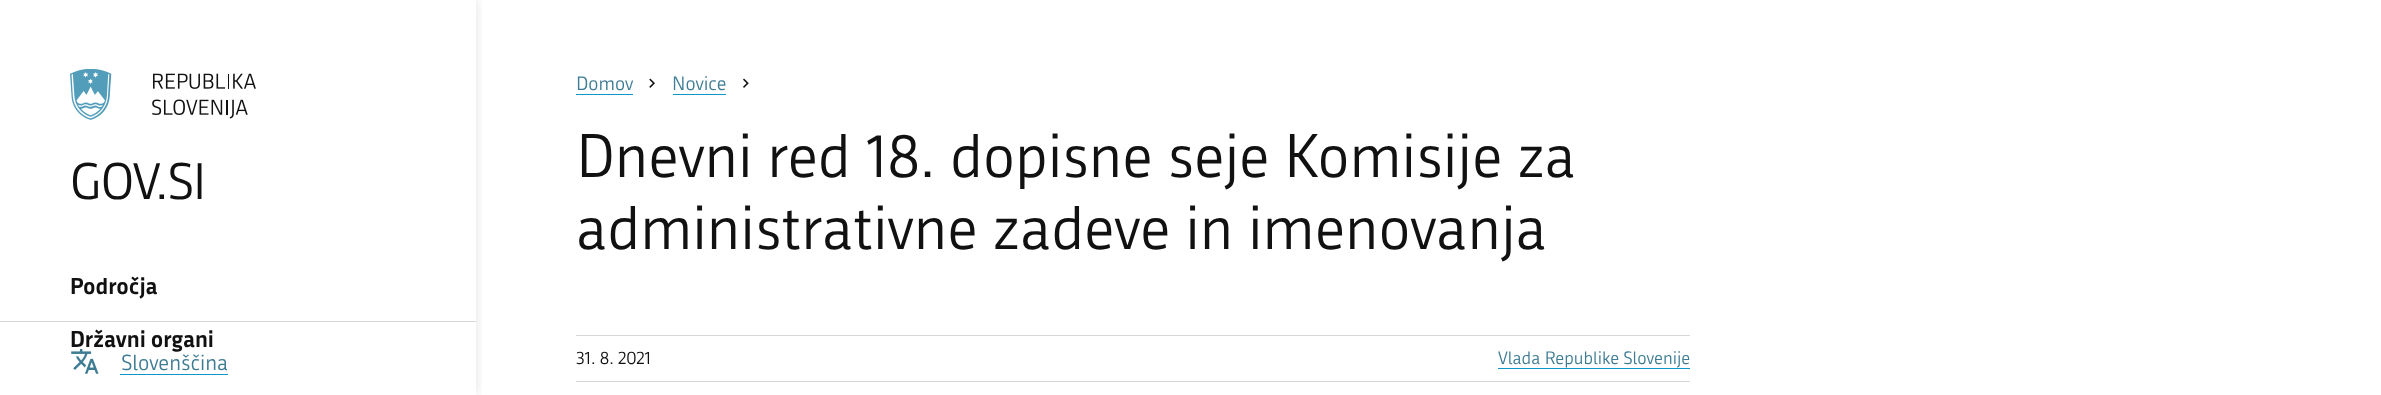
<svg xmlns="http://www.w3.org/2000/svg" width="2381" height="395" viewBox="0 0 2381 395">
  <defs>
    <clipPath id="clip1"><rect x="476" y="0" width="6" height="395"/></clipPath>
    <filter id="blur1" x="-50%" y="-200%" width="200%" height="500%"><feGaussianBlur stdDeviation="6"/></filter>
  </defs>
  <rect width="100%" height="100%" fill="#ffffff"/>
  <g clip-path="url(#clip1)">
    <rect x="0" y="0" width="476" height="395" fill="#000000" fill-opacity="0.12" filter="url(#blur1)"/>
  </g>
  <image x="70" y="69" width="186" height="51" href="img1.png"/>
  <text x="70" y="199" font-family="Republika" font-size="50" letter-spacing="-1" fill="#111111">GOV.SI</text>
  <text x="70" y="294" font-family="Republika" font-size="22.5" font-weight="bold" fill="#111111">Področja</text>
  <text x="70" y="347" font-family="Republika" font-size="22.5" font-weight="bold" fill="#111111">Državni organi</text>
  <rect x="0" y="321" width="476" height="1" fill="#d7d7d7"/>
  <image x="71" y="349" width="28" height="25" href="img2.png"/>
  <text x="121" y="370" font-family="Republika" font-size="21.25" fill="#3e7c94">Slovenščina</text>
  <rect x="120" y="374" width="108" height="1" fill="#0d96ca"/>
  <text x="576" y="90" font-family="Republika" font-size="19" fill="#3e7c94">Domov</text>
  <rect x="576" y="94" width="57" height="1" fill="#0d96ca"/>
  <image x="649" y="78" width="6" height="10" href="img3.png"/>
  <text x="672" y="90" font-family="Republika" font-size="19" fill="#3e7c94">Novice</text>
  <rect x="673" y="94" width="53" height="1" fill="#0d96ca"/>
  <image x="743" y="78" width="6" height="10" href="img4.png"/>
  <text x="576" y="177" font-family="Republika" font-size="60" fill="#111111">Dnevni red 18. dopisne seje Komisije za</text>
  <text x="576" y="249" font-family="Republika" font-size="60" fill="#111111">administrativne zadeve in imenovanja</text>
  <rect x="576" y="335" width="1114" height="1" fill="#d7d7d7"/>
  <rect x="576" y="381" width="1114" height="1" fill="#d7d7d7"/>
  <text x="576" y="364" font-family="Republika" font-size="17.5" fill="#111111">31. 8. 2021</text>
  <text x="1498" y="364" font-family="Republika" font-size="17.5" fill="#3e7c94">Vlada Republike Slovenije</text>
  <rect x="1498" y="368" width="192" height="1" fill="#0d96ca"/>
</svg>
